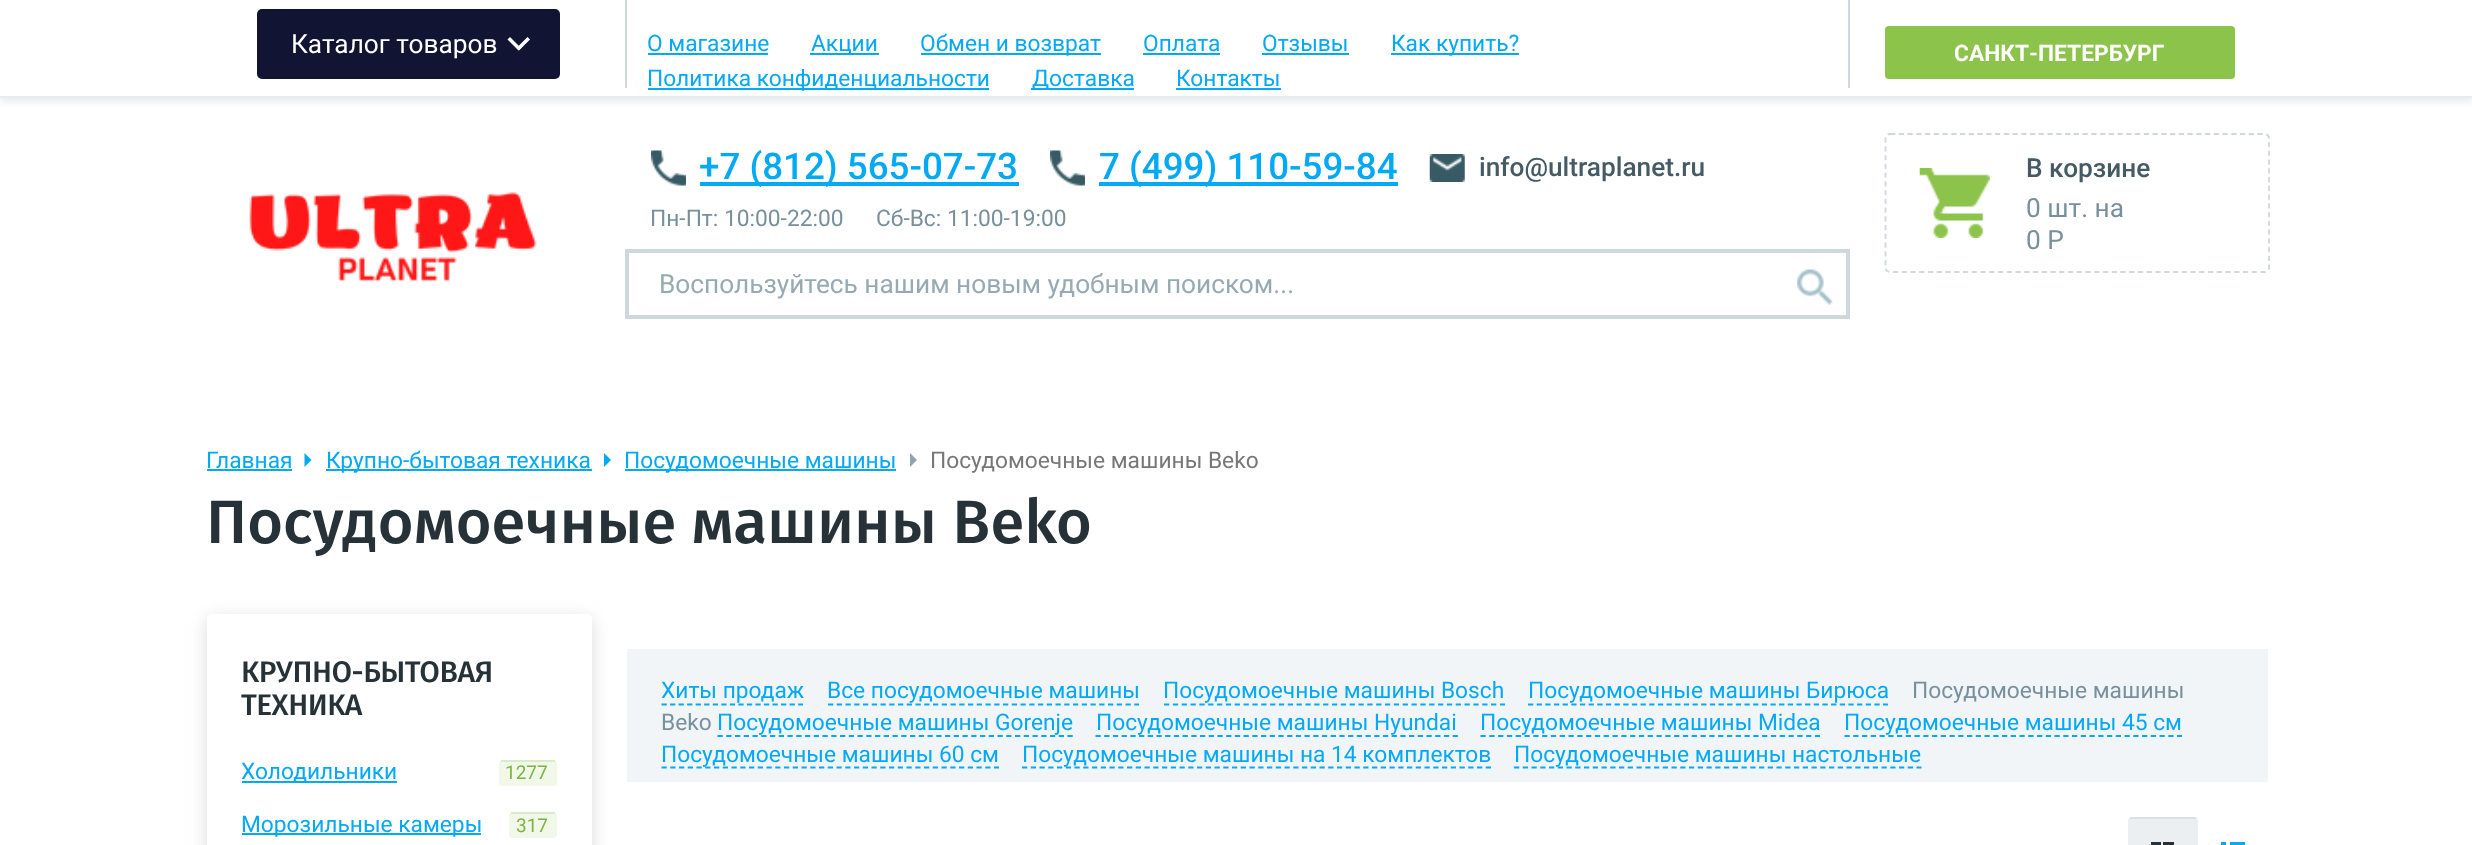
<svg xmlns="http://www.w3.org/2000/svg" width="2472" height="845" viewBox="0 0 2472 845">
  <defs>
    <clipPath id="clip1"><rect x="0" y="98" width="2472" height="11"/></clipPath>
    <filter id="blur1" x="-50%" y="-200%" width="200%" height="500%"><feGaussianBlur stdDeviation="3.5"/></filter>
    <clipPath id="clip2"><path d="M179 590H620V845H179ZM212 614H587C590 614 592 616 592 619V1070C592 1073 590 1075 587 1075H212C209 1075 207 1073 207 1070V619C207 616 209 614 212 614Z" clip-rule="evenodd"/></clipPath>
    <filter id="blur2" x="-50%" y="-200%" width="200%" height="500%"><feGaussianBlur stdDeviation="9"/></filter>
  </defs>
  <rect width="100%" height="100%" fill="#ffffff"/>
  <g clip-path="url(#clip1)">
    <rect x="0" y="4" width="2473" height="98" fill="#e7ebed" filter="url(#blur1)"/>
  </g>
  <rect x="0" y="96" width="2472" height="2" fill="#e7ebed"/>
  <rect x="257" y="9" width="303" height="70" rx="5" fill="#111433"/>
  <text x="291" y="53" font-family="Roboto" font-size="26.25" fill="#ffffff">Каталог товаров</text>
  <path d="M510 37L521 48L518.5 50.5L507.5 39.5Z" fill="#ffffff"/>
  <path d="M516.5 48L527.5 37L530 39.5L519 50.5Z" fill="#ffffff"/>
  <rect x="1848" y="0" width="2" height="88" fill="#cfd8dc"/>
  <rect x="625" y="0" width="2" height="88" fill="#cfd8dc"/>
  <text x="647" y="51" font-family="Roboto" font-size="22.75" fill="#03a9f5">О магазине</text>
  <rect x="648" y="53" width="120" height="2" fill="#03a9f5"/>
  <rect x="810" y="53" width="69" height="2" fill="#03a9f5"/>
  <text x="811" y="51" font-family="Roboto" font-size="22.75" fill="#03a9f5">Акции</text>
  <rect x="921" y="53" width="180" height="2" fill="#03a9f5"/>
  <text x="920" y="51" font-family="Roboto" font-size="22.75" fill="#03a9f5">Обмен и возврат</text>
  <text x="1143" y="51" font-family="Roboto" font-size="22.75" fill="#03a9f5">Оплата</text>
  <rect x="1143" y="53" width="77" height="2" fill="#03a9f5"/>
  <text x="1262" y="51" font-family="Roboto" font-size="22.75" fill="#03a9f5">Отзывы</text>
  <rect x="1262" y="53" width="87" height="2" fill="#03a9f5"/>
  <rect x="1391" y="53" width="128" height="2" fill="#03a9f5"/>
  <text x="1391" y="51" font-family="Roboto" font-size="22.75" fill="#03a9f5">Как купить?</text>
  <rect x="648" y="88" width="341" height="2" fill="#03a9f5"/>
  <text x="647" y="86" font-family="Roboto" font-size="22.75" fill="#03a9f5">Политика конфиденциальности</text>
  <rect x="1031" y="88" width="103" height="2" fill="#03a9f5"/>
  <text x="1032" y="86" font-family="Roboto" font-size="22.75" fill="#03a9f5">Доставка</text>
  <text x="1176" y="86" font-family="Roboto" font-size="22.75" fill="#03a9f5">Контакты</text>
  <rect x="1176" y="88" width="105" height="2" fill="#03a9f5"/>
  <rect x="1885" y="26" width="350" height="53" rx="4" fill="#8cc34b"/>
  <text x="1954" y="61" font-family="Roboto" font-size="22.75" font-weight="bold" fill="#ffffff">САНКТ-ПЕТЕРБУРГ</text>
  <image x="249" y="192" width="288" height="90" href="img1.png"/>
  <image x="651" y="150" width="35" height="36" href="img2.png"/>
  <rect x="700" y="182" width="319" height="4" fill="#03a9f5"/>
  <text x="699" y="179" font-family="Roboto" font-size="36.75" font-weight="500" fill="#03a9f5">+7 (812) 565-07-73</text>
  <image x="1050" y="150" width="35" height="36" href="img3.png"/>
  <rect x="1099" y="182" width="299" height="4" fill="#03a9f5"/>
  <text x="1099" y="179" font-family="Roboto" font-size="36.75" font-weight="500" fill="#03a9f5">7 (499) 110-59-84</text>
  <image x="1429" y="154" width="36" height="28" href="img4.png"/>
  <text x="1479" y="176" font-family="Roboto" font-size="26.25" font-weight="500" fill="#455a64">info@ultraplanet.ru</text>
  <text x="650" y="226" font-family="Roboto" font-size="22.75" fill="#78909c">Пн-Пт: 10:00-22:00</text>
  <text x="876" y="226" font-family="Roboto" font-size="22.75" fill="#78909c">Сб-Вс: 11:00-19:00</text>
  <rect x="627" y="251" width="1221" height="66" fill="none" stroke="#cfd8dc" stroke-width="4"/>
  <text x="659" y="293" font-family="Roboto" font-size="26.25" fill="#97aab3">Воспользуйтесь нашим новым удобным поиском...</text>
  <image x="1797" y="269" width="36" height="36" href="img5.png"/>
  <path d="M1890 134H2264.5C2267 134 2269 136 2269 138V268C2269 270 2267 272 2264.5 272H1890C1887.5 272 1885.5 270 1885.5 268V138C1885.5 136 1887.5 134 1890 134Z" fill="none" stroke="#cfd8dc" stroke-width="1.8" stroke-dasharray="5.25 3.5"/>
  <image x="1919" y="168" width="71" height="70" href="img6.png"/>
  <text x="2026" y="177" font-family="Roboto" font-size="26.25" font-weight="500" fill="#455a64">В корзине</text>
  <text x="2026" y="217" font-family="Roboto" font-size="26.25" fill="#78909c">0 шт. на</text>
  <text x="2026" y="249" font-family="Roboto" font-size="26.25" fill="#78909c">0 Р</text>
  <text x="206" y="468" font-family="Roboto" font-size="22.75" fill="#03a9f5">Главная</text>
  <rect x="207" y="469" width="85" height="2" fill="#03a9f5"/>
  <path d="M304.5 467V453L311.5 460Z" fill="#03a9f5"/>
  <rect x="326" y="469" width="266" height="2" fill="#03a9f5"/>
  <text x="326" y="468" font-family="Roboto" font-size="22.75" fill="#03a9f5">Крупно-бытовая техника</text>
  <path d="M604 467V453L611 460Z" fill="#03a9f5"/>
  <rect x="625" y="469" width="271" height="2" fill="#03a9f5"/>
  <text x="624" y="468" font-family="Roboto" font-size="22.75" fill="#03a9f5">Посудомоечные машины</text>
  <path d="M910 467V453L917 460Z" fill="#90a4ae"/>
  <text x="930" y="468" font-family="Roboto" font-size="22.75" fill="#777777">Посудомоечные машины Beko</text>
  <text x="206" y="543" font-family="Fira Sans" font-size="61.25" font-weight="500" fill="#263238">Посудомоечные машины Beko</text>
  <g clip-path="url(#clip2)">
    <rect x="207" y="618" width="385" height="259" rx="5" fill="#dcdcdc" filter="url(#blur2)"/>
  </g>
  <text x="241" y="682" font-family="Fira Sans" font-size="29.75" font-weight="500" letter-spacing="-0.5" fill="#263238">КРУПНО-БЫТОВАЯ</text>
  <text x="241" y="715" font-family="Fira Sans" font-size="29.75" font-weight="500" letter-spacing="-0.5" fill="#263238">ТЕХНИКА</text>
  <rect x="242" y="781" width="155" height="2" fill="#03a9f5"/>
  <text x="241" y="779" font-family="Roboto" font-size="22.75" fill="#03a9f5">Холодильники</text>
  <rect x="499" y="760" width="58" height="26" rx="4" fill="#f1f8e9"/>
  <rect x="501" y="760" width="54" height="2" fill="#dbebc9"/>
  <text x="505" y="779" font-family="Roboto" font-size="19" fill="#7cb342">1277</text>
  <rect x="242" y="833" width="239" height="2" fill="#03a9f5"/>
  <text x="241" y="832" font-family="Roboto" font-size="22.75" fill="#03a9f5">Морозильные камеры</text>
  <rect x="509" y="812" width="48" height="26" rx="4" fill="#f1f8e9"/>
  <rect x="511" y="812" width="44" height="2" fill="#dbebc9"/>
  <text x="516" y="832" font-family="Roboto" font-size="19" fill="#7cb342">317</text>
  <rect x="627" y="649" width="1641" height="133" fill="#f2f5f7"/>
  <text x="661" y="698" font-family="Roboto" font-size="22.75" fill="#03a9f5">Хиты продаж</text>
  <path d="M661.5 704.5H803" fill="none" stroke="#03a9f5" stroke-width="1.8" stroke-dasharray="5.25 3.29"/>
  <text x="827" y="698" font-family="Roboto" font-size="22.75" fill="#03a9f5">Все посудомоечные машины</text>
  <path d="M828 704.5H1139" fill="none" stroke="#03a9f5" stroke-width="1.8" stroke-dasharray="5.25 3.5"/>
  <text x="1163" y="698" font-family="Roboto" font-size="22.75" fill="#03a9f5">Посудомоечные машины Bosch</text>
  <path d="M1164 704.5H1505" fill="none" stroke="#03a9f5" stroke-width="1.8" stroke-dasharray="5.25 3.59"/>
  <text x="1528" y="698" font-family="Roboto" font-size="22.75" fill="#03a9f5">Посудомоечные машины Бирюса</text>
  <path d="M1528 704.5H1888" fill="none" stroke="#03a9f5" stroke-width="1.8" stroke-dasharray="5.25 3.41"/>
  <text x="1912" y="698" font-family="Roboto" font-size="22.75" fill="#78909c">Посудомоечные машины</text>
  <text x="661" y="730" font-family="Roboto" font-size="22.75" fill="#78909c">Beko</text>
  <text x="717" y="730" font-family="Roboto" font-size="22.75" fill="#03a9f5">Посудомоечные машины Gorenje</text>
  <path d="M717.5 736H1073" fill="none" stroke="#03a9f5" stroke-width="1.8" stroke-dasharray="5.25 3.5"/>
  <text x="1096" y="730" font-family="Roboto" font-size="22.75" fill="#03a9f5">Посудомоечные машины Hyundai</text>
  <path d="M1095.5 736H1458" fill="none" stroke="#03a9f5" stroke-width="1.8" stroke-dasharray="5.25 3.46"/>
  <text x="1480" y="730" font-family="Roboto" font-size="22.75" fill="#03a9f5">Посудомоечные машины Midea</text>
  <path d="M1480.5 736H1820" fill="none" stroke="#03a9f5" stroke-width="1.8" stroke-dasharray="5.25 3.55"/>
  <text x="1844" y="730" font-family="Roboto" font-size="22.75" fill="#03a9f5">Посудомоечные машины 45 см</text>
  <path d="M1844.5 736H2182" fill="none" stroke="#03a9f5" stroke-width="1.8" stroke-dasharray="5.25 3.5"/>
  <path d="M661.5 767.5H999" fill="none" stroke="#03a9f5" stroke-width="1.8" stroke-dasharray="5.25 3.5"/>
  <text x="661" y="762" font-family="Roboto" font-size="22.75" fill="#03a9f5">Посудомоечные машины 60 см</text>
  <path d="M1022 767.5H1491" fill="none" stroke="#03a9f5" stroke-width="1.8" stroke-dasharray="5.25 3.5"/>
  <text x="1022" y="762" font-family="Roboto" font-size="22.75" fill="#03a9f5">Посудомоечные машины на 14 комплектов</text>
  <path d="M1514 767.5H1921.5" fill="none" stroke="#03a9f5" stroke-width="1.8" stroke-dasharray="5.25 3.5"/>
  <text x="1514" y="762" font-family="Roboto" font-size="22.75" fill="#03a9f5">Посудомоечные машины настольные</text>
  <rect x="2128" y="817" width="70" height="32" rx="4" fill="#eceff1"/>
  <rect x="2130" y="817" width="66" height="2" fill="#dae0e4"/>
  <rect x="2151" y="842" width="10" height="3" fill="#263238"/>
  <rect x="2163" y="842" width="11" height="3" fill="#263238"/>
  <rect x="2221" y="842" width="5" height="3" fill="#03a9f5"/>
  <rect x="2230" y="842" width="15" height="3" fill="#03a9f5"/>
</svg>
